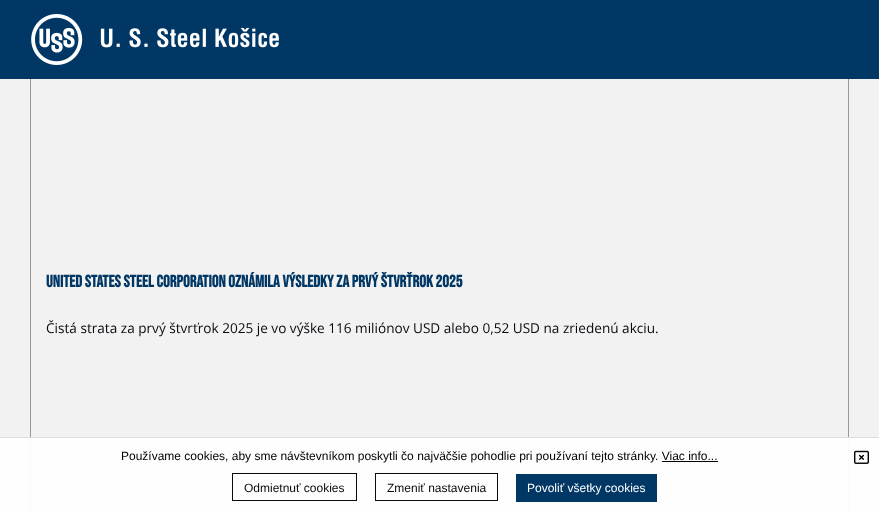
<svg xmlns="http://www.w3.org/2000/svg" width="879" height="512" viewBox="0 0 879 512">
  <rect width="100%" height="100%" fill="#f2f2f2"/>
  <rect x="0" y="438" width="879" height="74" fill="#fefefe"/>
  <rect x="0" y="0" width="879" height="79" fill="#003764"/>
  <image x="31" y="14" width="248" height="51" href="img1.png"/>
  <rect x="848" y="79" width="1" height="358" fill="#999999"/>
  <rect x="848" y="437" width="1" height="75" fill="#fafafa"/>
  <rect x="30" y="79" width="1" height="358" fill="#999999"/>
  <rect x="30" y="437" width="1" height="75" fill="#fafafa"/>
  <text x="46" y="287" font-family="Bebas Neue" font-size="16.8" font-weight="bold" fill="#003764">UNITED STATES STEEL CORPORATION OZNÁMILA VÝSLEDKY ZA PRVÝ ŠTVRŤROK 2025</text>
  <text x="46" y="333" font-family="Open Sans" font-size="13.6" fill="#080a10">Čistá strata za prvý štvrťrok 2025 je vo výške 116 miliónov USD alebo 0,52 USD na zriedenú akciu.</text>
  <rect x="0" y="437" width="879" height="1" fill="#dddddd"/>
  <text x="121" y="460" font-family="Liberation Sans" font-size="12" fill="#000000">Používame cookies, aby sme návštevníkom poskytli čo najväčšie pohodlie pri používaní tejto stránky. Viac info...</text>
  <rect x="662" y="461" width="56" height="1" fill="#000000"/>
  <image x="854" y="450" width="15" height="14" href="img2.png"/>
  <rect x="232.5" y="473.5" width="124" height="27" fill="none" stroke="#080a10"/>
  <text x="244" y="492" font-family="Liberation Sans" font-size="12" fill="#080a10">Odmietnuť cookies</text>
  <rect x="375.5" y="473.5" width="122" height="27" fill="none" stroke="#080a10"/>
  <text x="387" y="492" font-family="Liberation Sans" font-size="12" fill="#080a10">Zmeniť nastavenia</text>
  <rect x="516" y="474" width="141" height="28" fill="#003764"/>
  <text x="527" y="492" font-family="Liberation Sans" font-size="12" fill="#ffffff">Povoliť všetky cookies</text>
</svg>
